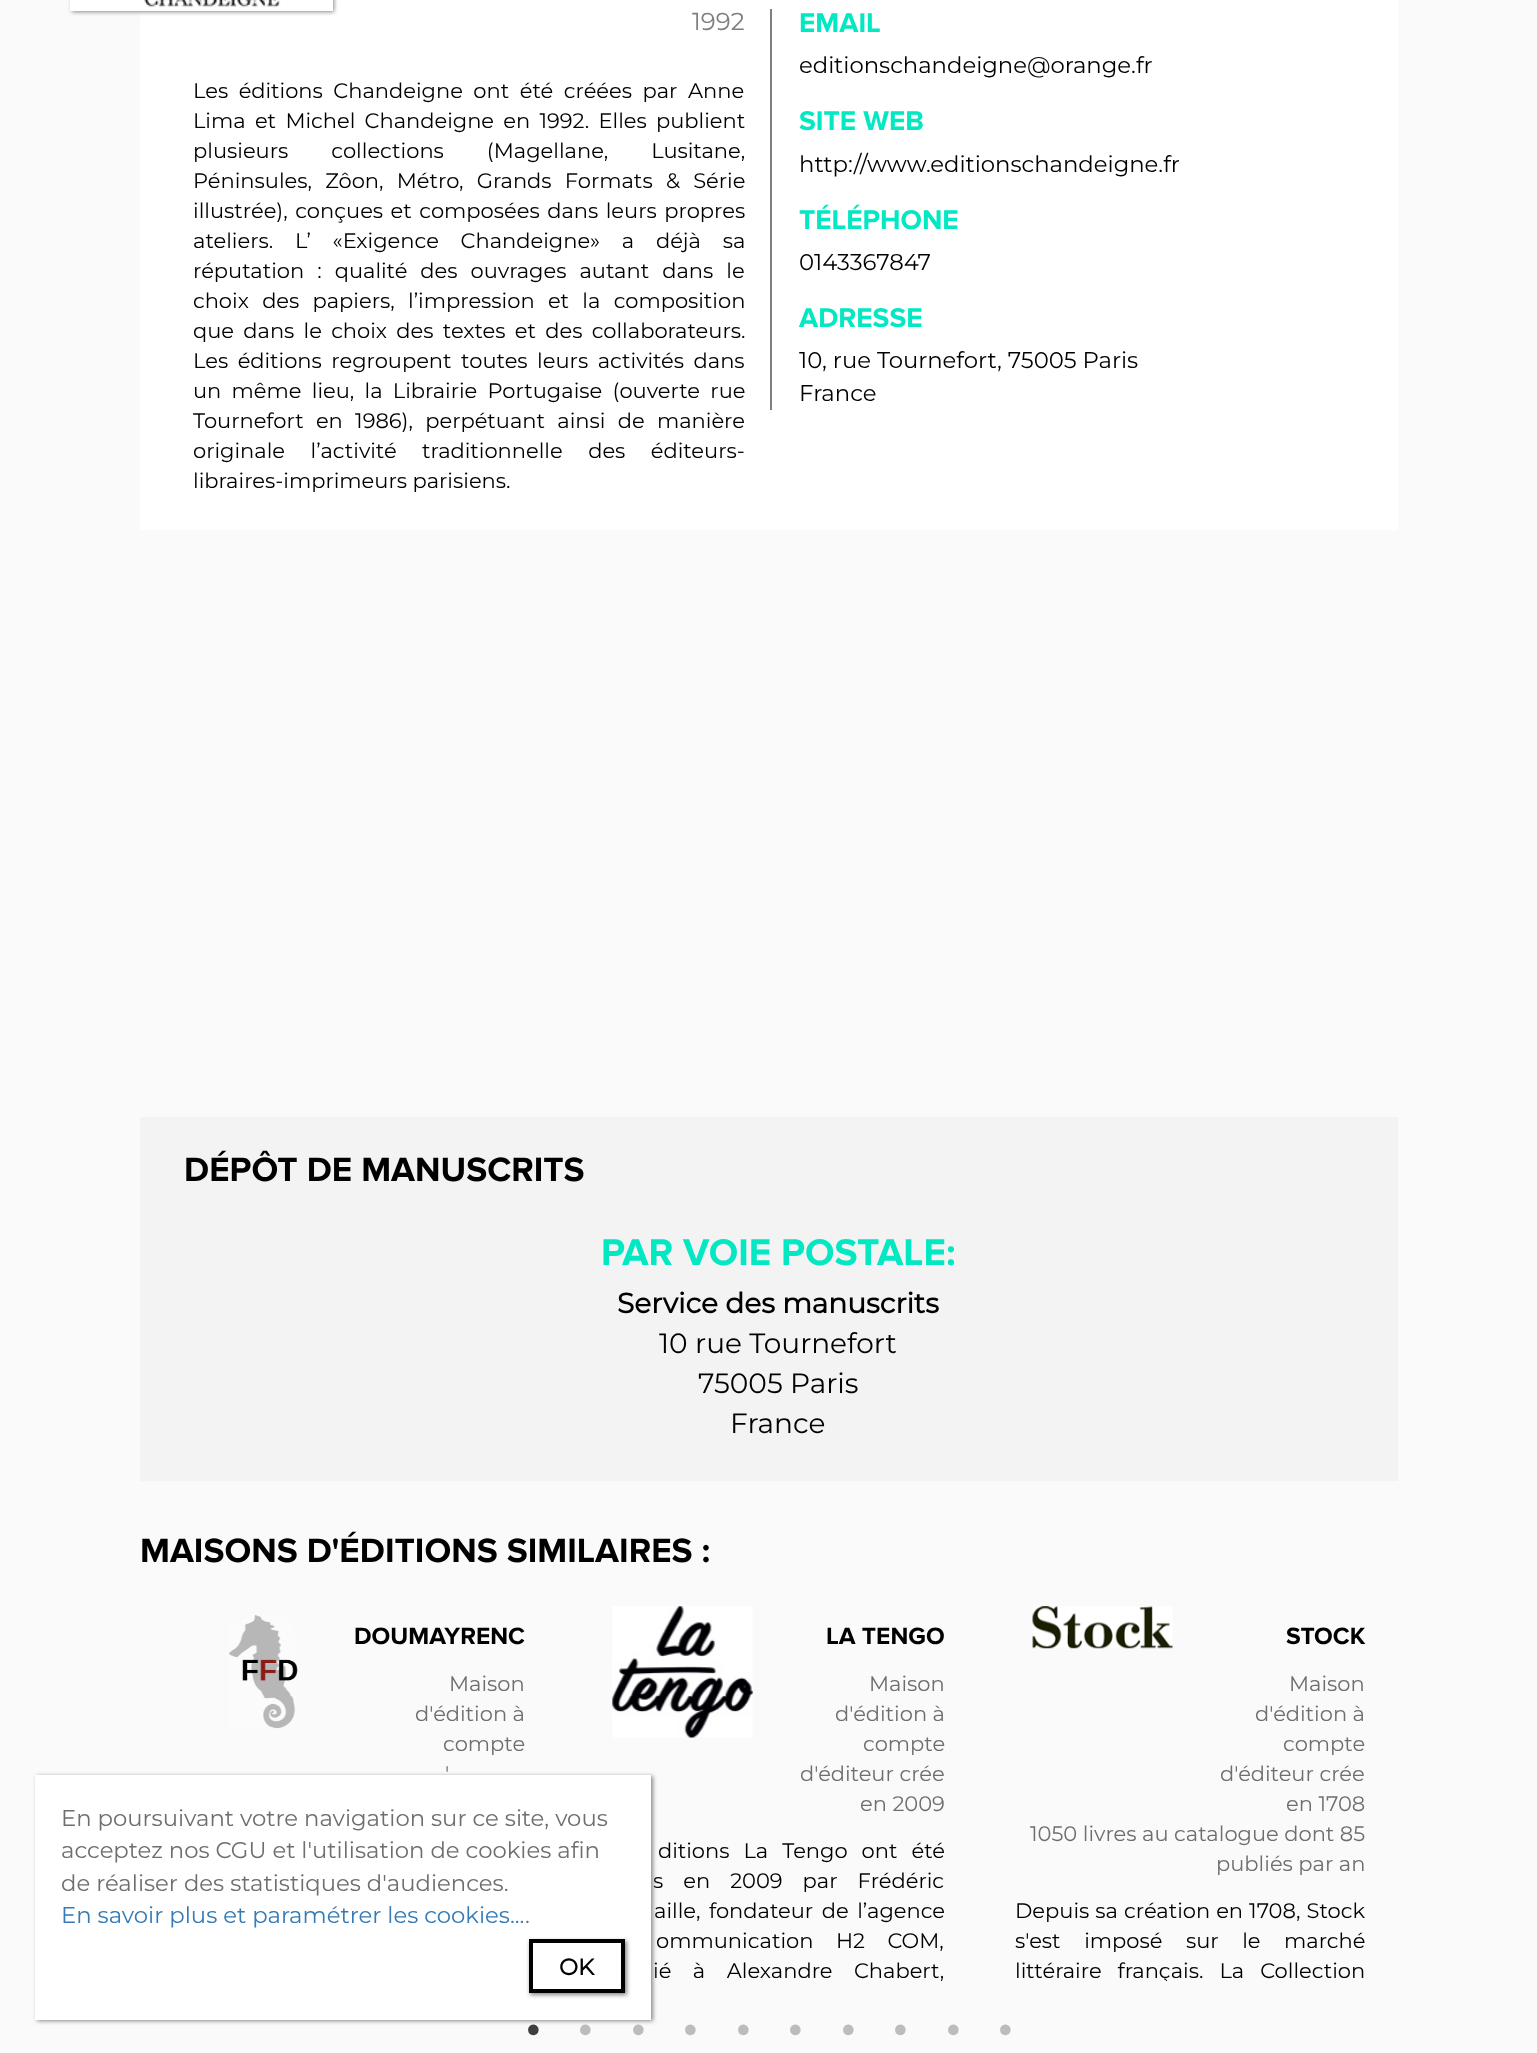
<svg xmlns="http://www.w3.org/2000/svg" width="1537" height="2053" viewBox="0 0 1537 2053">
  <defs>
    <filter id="blur1" x="-50%" y="-200%" width="200%" height="500%"><feGaussianBlur stdDeviation="2"/></filter>
    <clipPath id="clip1"><rect x="980" y="1607" width="418" height="374"/></clipPath>
    <clipPath id="clip2"><path d="M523 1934H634V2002H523ZM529 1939H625V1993H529Z" clip-rule="evenodd"/></clipPath>
  </defs>
  <rect width="100%" height="100%" fill="#fafafa"/>
  <rect x="140" y="0" width="1258" height="530" fill="#ffffff"/>
  <rect x="72" y="-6" width="262" height="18" fill="#888888" filter="url(#blur1)"/>
  <rect x="70" y="0" width="263" height="11" fill="#ffffff"/>
  <image x="144" y="0" width="137" height="8" href="img1.png"/>
  <text x="692" y="30" font-family="Montserrat" font-size="24.5" font-weight="100" fill="#7f7f7f">1992</text>
  <text x="193" y="98" word-spacing="5" font-family="Montserrat" font-size="21" font-weight="100" fill="#000000">Les éditions Chandeigne ont été créées par Anne</text>
  <text x="193" y="128" word-spacing="3.75" font-family="Montserrat" font-size="21" font-weight="100" fill="#000000">Lima et Michel Chandeigne en 1992. Elles publient</text>
  <text x="193" y="158" word-spacing="37.5" font-family="Montserrat" font-size="21" font-weight="100" fill="#000000">plusieurs collections (Magellane, Lusitane,</text>
  <text x="193" y="188" word-spacing="7.75" font-family="Montserrat" font-size="21" font-weight="100" fill="#000000">Péninsules, Zôon, Métro, Grands Formats &amp; Série</text>
  <text x="193" y="218" word-spacing="2" font-family="Montserrat" font-size="21" font-weight="100" fill="#000000">illustrée), conçues et composées dans leurs propres</text>
  <text x="193" y="248" word-spacing="16.25" font-family="Montserrat" font-size="21" font-weight="100" fill="#000000">ateliers. L’ «Exigence Chandeigne» a déjà sa</text>
  <text x="193" y="278" word-spacing="7.5" font-family="Montserrat" font-size="21" font-weight="100" fill="#000000">réputation : qualité des ouvrages autant dans le</text>
  <text x="193" y="308" word-spacing="7.75" font-family="Montserrat" font-size="21" font-weight="100" fill="#000000">choix des papiers, l’impression et la composition</text>
  <text x="193" y="338" word-spacing="3.75" font-family="Montserrat" font-size="21" font-weight="100" fill="#000000">que dans le choix des textes et des collaborateurs.</text>
  <text x="193" y="368" word-spacing="4" font-family="Montserrat" font-size="21" font-weight="100" fill="#000000">Les éditions regroupent toutes leurs activités dans</text>
  <text x="193" y="398" word-spacing="4.75" font-family="Montserrat" font-size="21" font-weight="100" fill="#000000">un même lieu, la Librairie Portugaise (ouverte rue</text>
  <text x="193" y="428" word-spacing="6.75" font-family="Montserrat" font-size="21" font-weight="100" fill="#000000">Tournefort en 1986), perpétuant ainsi de manière</text>
  <text x="193" y="458" word-spacing="20" font-family="Montserrat" font-size="21" font-weight="100" fill="#000000">originale l’activité traditionnelle des éditeurs-</text>
  <text x="193" y="488" font-family="Montserrat" font-size="21" font-weight="100" fill="#000000">libraires-imprimeurs parisiens.</text>
  <rect x="770" y="9" width="2" height="401" fill="#7f7f7f"/>
  <text x="799" y="32" font-family="Proxima Nova" font-size="28" font-weight="bold" fill="#02e8c3">EMAIL</text>
  <text x="799" y="73" font-family="Montserrat" font-size="22.75" font-weight="100" fill="#000000">editionschandeigne@orange.fr</text>
  <text x="799" y="130" font-family="Proxima Nova" font-size="28" font-weight="bold" fill="#02e8c3">SITE WEB</text>
  <text x="799" y="172" font-family="Montserrat" font-size="22.75" font-weight="100" fill="#000000">http://www.editionschandeigne.fr</text>
  <text x="799" y="229" font-family="Proxima Nova" font-size="28" font-weight="bold" fill="#02e8c3">TÉLÉPHONE</text>
  <text x="799" y="270" font-family="Montserrat" font-size="22.75" font-weight="100" fill="#000000">0143367847</text>
  <text x="799" y="327" font-family="Proxima Nova" font-size="28" font-weight="bold" fill="#02e8c3">ADRESSE</text>
  <text x="799" y="368" font-family="Montserrat" font-size="22.75" font-weight="100" fill="#000000">10, rue Tournefort, 75005 Paris</text>
  <text x="799" y="401" font-family="Montserrat" font-size="22.75" font-weight="100" fill="#000000">France</text>
  <rect x="140" y="1117" width="1258" height="364" fill="#f3f3f3"/>
  <text x="184" y="1181" font-family="Proxima Nova" font-size="35" font-weight="bold" fill="#000000">DÉPÔT DE MANUSCRITS</text>
  <text x="601" y="1265" font-family="Proxima Nova" font-size="38.5" font-weight="bold" fill="#02e8c3">PAR VOIE POSTALE:</text>
  <text x="617" y="1313" font-family="Montserrat" font-size="28" font-weight="bold" fill="#000000">Service des manuscrits</text>
  <text x="659" y="1353" font-family="Montserrat" font-size="28" font-weight="100" fill="#000000">10 rue Tournefort</text>
  <text x="698" y="1393" font-family="Montserrat" font-size="28" font-weight="100" fill="#000000">75005 Paris</text>
  <text x="730" y="1433" font-family="Montserrat" font-size="28" font-weight="100" fill="#000000">France</text>
  <text x="140" y="1562" font-family="Proxima Nova" font-size="35" font-weight="bold" fill="#000000">MAISONS D'ÉDITIONS SIMILAIRES :</text>
  <image x="229" y="1615" width="69" height="114" href="img2.png"/>
  <text x="354" y="1644" font-family="Proxima Nova" font-size="24.5" font-weight="bold" fill="#000000">DOUMAYRENC</text>
  <text x="449" y="1691" font-family="Montserrat" font-size="21" font-weight="100" fill="#6e6e6e">Maison</text>
  <text x="415" y="1721" font-family="Montserrat" font-size="21" font-weight="100" fill="#6e6e6e">d'édition à</text>
  <text x="443" y="1751" font-family="Montserrat" font-size="21" font-weight="100" fill="#6e6e6e">compte</text>
  <text x="445" y="1781" font-family="Montserrat" font-size="21" font-weight="100" fill="#6e6e6e">'</text>
  <image x="612" y="1606" width="141" height="132" href="img3.png"/>
  <text x="826" y="1644" font-family="Proxima Nova" font-size="24.5" font-weight="bold" fill="#000000">LA TENGO</text>
  <text x="869" y="1691" font-family="Montserrat" font-size="21" font-weight="100" fill="#6e6e6e">Maison</text>
  <text x="835" y="1721" font-family="Montserrat" font-size="21" font-weight="100" fill="#6e6e6e">d'édition à</text>
  <text x="863" y="1751" font-family="Montserrat" font-size="21" font-weight="100" fill="#6e6e6e">compte</text>
  <text x="800" y="1781" font-family="Montserrat" font-size="21" font-weight="100" fill="#6e6e6e">d'éditeur crée</text>
  <text x="860" y="1811" font-family="Montserrat" font-size="21" font-weight="100" fill="#6e6e6e">en 2009</text>
  <text x="658" y="1858" word-spacing="8.5" font-family="Montserrat" font-size="21" font-weight="100" fill="#000000">ditions La Tengo ont été</text>
  <text x="653" y="1888" word-spacing="14.5" font-family="Montserrat" font-size="21" font-weight="100" fill="#000000">s en 2009 par Frédéric</text>
  <text x="654" y="1918" word-spacing="3" font-family="Montserrat" font-size="21" font-weight="100" fill="#000000">aille, fondateur de l’agence</text>
  <text x="656" y="1948" word-spacing="17" font-family="Montserrat" font-size="21" font-weight="100" fill="#000000">ommunication H2 COM,</text>
  <text x="653" y="1978" word-spacing="16" font-family="Montserrat" font-size="21" font-weight="100" fill="#000000">ié à Alexandre Chabert,</text>
  <image x="1032" y="1606" width="141" height="43" href="img4.png"/>
  <text x="1286" y="1644" font-family="Proxima Nova" font-size="24.5" font-weight="bold" fill="#000000">STOCK</text>
  <text x="1289" y="1691" font-family="Montserrat" font-size="21" font-weight="100" fill="#6e6e6e">Maison</text>
  <text x="1255" y="1721" font-family="Montserrat" font-size="21" font-weight="100" fill="#6e6e6e">d'édition à</text>
  <text x="1283" y="1751" font-family="Montserrat" font-size="21" font-weight="100" fill="#6e6e6e">compte</text>
  <text x="1220" y="1781" font-family="Montserrat" font-size="21" font-weight="100" fill="#6e6e6e">d'éditeur crée</text>
  <text x="1286" y="1811" font-family="Montserrat" font-size="21" font-weight="100" fill="#6e6e6e">en 1708</text>
  <text x="1030" y="1841" font-family="Montserrat" font-size="21" font-weight="100" fill="#6e6e6e">1050 livres au catalogue dont 85</text>
  <text x="1216" y="1871" font-family="Montserrat" font-size="21" font-weight="100" fill="#6e6e6e">publiés par an</text>
  <text x="1015" y="1918" word-spacing="0.5" font-family="Montserrat" font-size="21" font-weight="100" fill="#000000">Depuis sa création en 1708, Stock</text>
  <text x="1015" y="1948" word-spacing="18" font-family="Montserrat" font-size="21" font-weight="100" fill="#000000">s'est imposé sur le marché</text>
  <g clip-path="url(#clip1)">
    <text x="1015" y="1978" word-spacing="10.5" font-family="Montserrat" font-size="21" font-weight="100" fill="#000000">littéraire français. La Collection</text>
  </g>
  <text x="523" y="2049" font-family="Montserrat" font-size="70" font-weight="100" fill="#3f3f3f">•</text>
  <text x="575" y="2049" font-family="Montserrat" font-size="70" font-weight="100" fill="#bcbcbc">•</text>
  <text x="628" y="2049" font-family="Montserrat" font-size="70" font-weight="100" fill="#bcbcbc">•</text>
  <text x="680" y="2049" font-family="Montserrat" font-size="70" font-weight="100" fill="#bcbcbc">•</text>
  <text x="733" y="2049" font-family="Montserrat" font-size="70" font-weight="100" fill="#bcbcbc">•</text>
  <text x="785" y="2049" font-family="Montserrat" font-size="70" font-weight="100" fill="#bcbcbc">•</text>
  <text x="838" y="2049" font-family="Montserrat" font-size="70" font-weight="100" fill="#bcbcbc">•</text>
  <text x="890" y="2049" font-family="Montserrat" font-size="70" font-weight="100" fill="#bcbcbc">•</text>
  <text x="943" y="2049" font-family="Montserrat" font-size="70" font-weight="100" fill="#bcbcbc">•</text>
  <text x="995" y="2049" font-family="Montserrat" font-size="70" font-weight="100" fill="#bcbcbc">•</text>
  <rect x="37" y="1776" width="616" height="245" fill="#888888" filter="url(#blur1)"/>
  <rect x="35" y="1775" width="616" height="245" fill="#ffffff"/>
  <text x="61" y="1826" font-family="Montserrat" font-size="22.75" font-weight="100" fill="#6e6e6e">En poursuivant votre navigation sur ce site, vous</text>
  <text x="61" y="1858" font-family="Montserrat" font-size="22.75" font-weight="100" fill="#6e6e6e">acceptez nos CGU et l'utilisation de cookies afin</text>
  <text x="61" y="1891" font-family="Montserrat" font-size="22.75" font-weight="100" fill="#6e6e6e">de réaliser des statistiques d'audiences.</text>
  <text x="61" y="1923" font-family="Montserrat" font-size="22.75" font-weight="100" fill="#337ab7">En savoir plus et paramétrer les cookies...</text>
  <text x="525" y="1923" font-family="Montserrat" font-size="22.75" font-weight="100" fill="#6e6e6e">.</text>
  <g clip-path="url(#clip2)">
    <rect x="530" y="1941" width="97" height="54" fill="#888888" filter="url(#blur1)"/>
  </g>
  <rect x="531" y="1941" width="92" height="50" fill="none" stroke="#000000" stroke-width="4"/>
  <text x="559" y="1975" font-family="Montserrat" font-size="22.75" font-weight="bold" fill="#000000">OK</text>
</svg>
